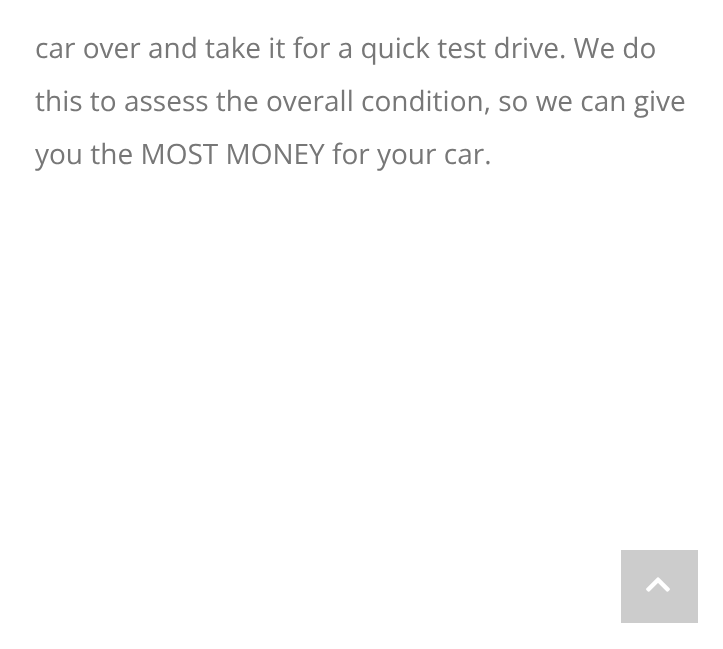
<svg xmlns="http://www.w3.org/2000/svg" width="723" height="649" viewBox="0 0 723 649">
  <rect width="100%" height="100%" fill="#ffffff"/>
  <text x="35" y="58" font-family="Open Sans" font-size="28" fill="#777777">car over and take it for a quick test drive. We do</text>
  <text x="35" y="111" font-family="Open Sans" font-size="28" fill="#777777">this to assess the overall condition, so we can give</text>
  <text x="35" y="164" font-family="Open Sans" font-size="28" fill="#777777">you the MOST MONEY for your car.</text>
  <rect x="621" y="550" width="77" height="73" fill="#cccccc"/>
  <image x="646" y="577" width="24" height="15" href="img1.png"/>
</svg>
